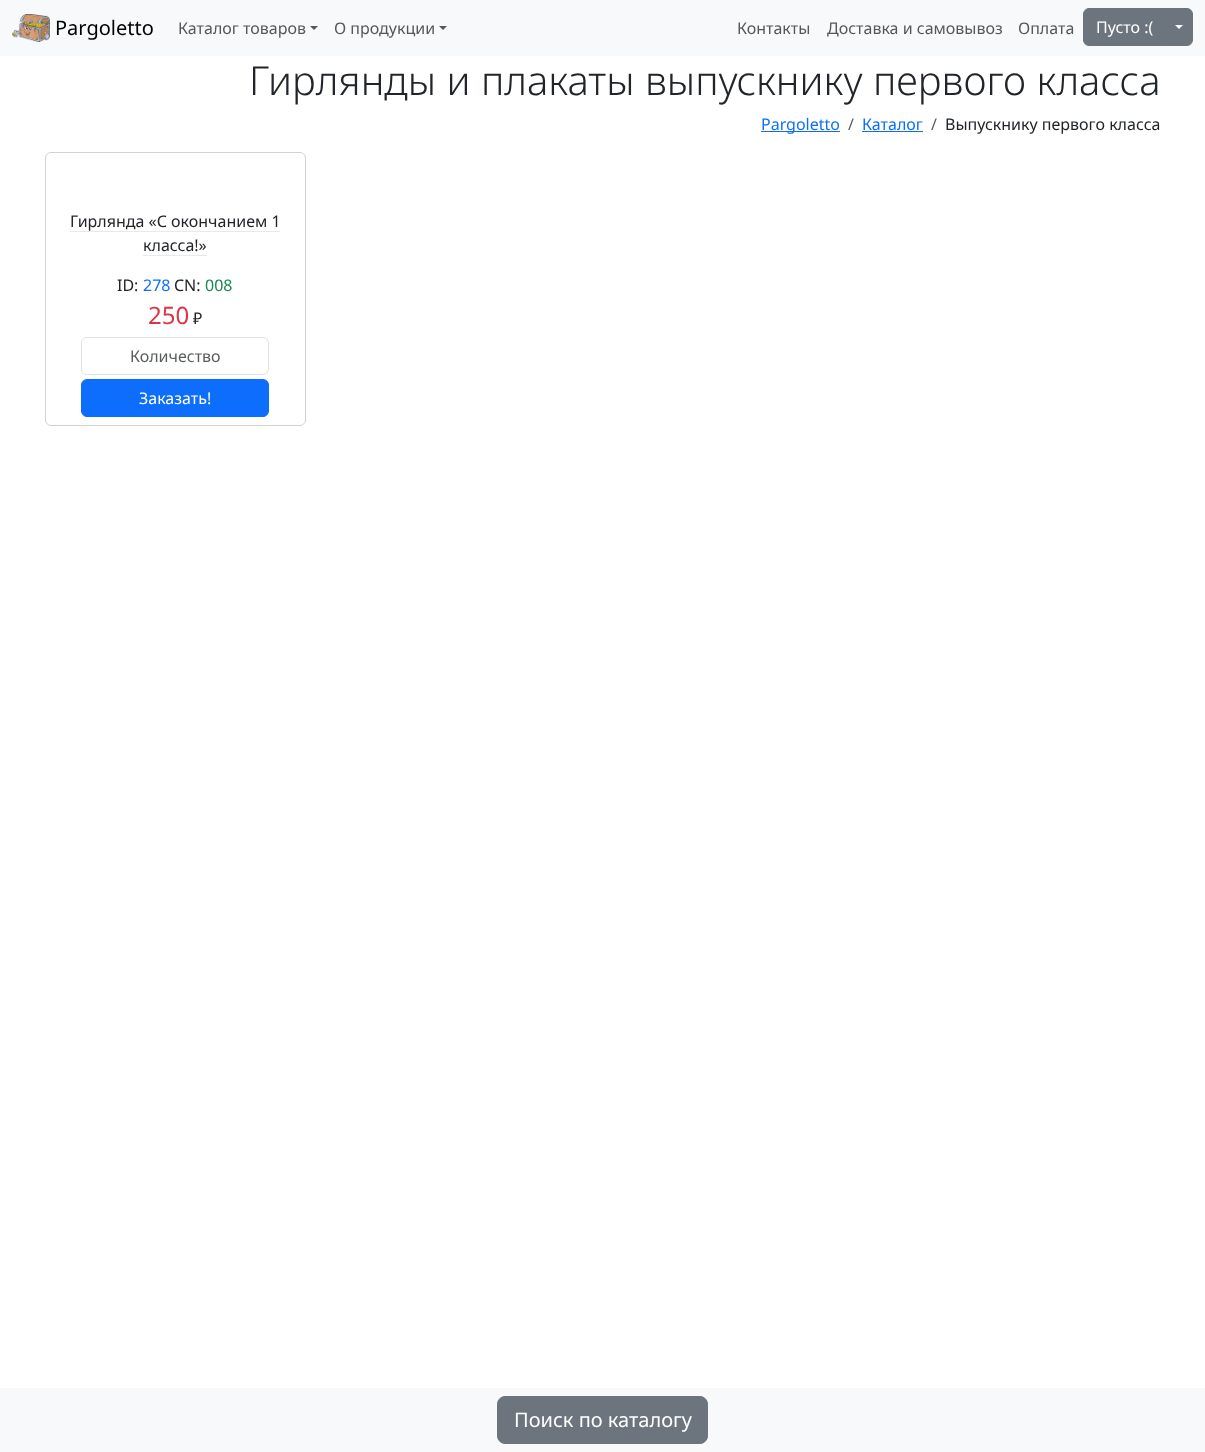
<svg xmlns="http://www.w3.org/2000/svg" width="1205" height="1452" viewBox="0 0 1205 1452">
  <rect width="100%" height="100%" fill="#ffffff"/>
  <rect x="0" y="0" width="1205" height="56" fill="#f8f9fa"/>
  <image x="12" y="14" width="38" height="28" href="img1.png"/>
  <text x="55" y="35" font-family="Noto Sans" font-size="20" fill="#000000">Pargoletto</text>
  <text x="178" y="34" font-family="Noto Sans" font-size="16" fill="#575758">Каталог товаров</text>
  <path d="M310 26H318L314 30Z" fill="#575758"/>
  <text x="334" y="34" font-family="Noto Sans" font-size="16" fill="#575758">О продукции</text>
  <path d="M439 26H447L443 30Z" fill="#575758"/>
  <text x="737" y="34" font-family="Noto Sans" font-size="16" fill="#575758">Контакты</text>
  <text x="827" y="34" font-family="Noto Sans" font-size="16" fill="#575758">Доставка и самовывоз</text>
  <text x="1018" y="34" font-family="Noto Sans" font-size="16" fill="#575758">Оплата</text>
  <path d="M1089 8.5H1165.5V45.5H1089C1086 45.5 1083.5 43 1083.5 40V14C1083.5 11 1086 8.5 1089 8.5Z" fill="#6c757d" stroke="#6c757d"/>
  <text x="1096" y="33" font-family="Noto Sans" font-size="16" fill="#ffffff">Пусто :(</text>
  <path d="M1165.5 8.5H1187C1190 8.5 1192.5 11 1192.5 14V40C1192.5 43 1190 45.5 1187 45.5H1165.5Z" fill="#6c757d" stroke="#6c757d"/>
  <path d="M1175 25H1183L1179 29Z" fill="#ffffff"/>
  <text x="249" y="95" font-family="Noto Sans" font-size="40" font-weight="300" fill="#212529">Гирлянды и плакаты выпускнику первого класса</text>
  <rect x="761" y="131" width="79" height="1" fill="#0d6efd"/>
  <text x="761" y="130" font-family="Noto Sans" font-size="16" fill="#0d6efd">Pargoletto</text>
  <text x="848" y="130" font-family="Noto Sans" font-size="16" fill="#595c5f">/</text>
  <text x="862" y="130" font-family="Noto Sans" font-size="16" fill="#0d6efd">Каталог</text>
  <rect x="862" y="131" width="61" height="1" fill="#0d6efd"/>
  <text x="931" y="130" font-family="Noto Sans" font-size="16" fill="#595c5f">/</text>
  <text x="945" y="130" font-family="Noto Sans" font-size="16" fill="#212529">Выпускнику первого класса</text>
  <rect x="45.5" y="152.5" width="260" height="273" rx="5.5" fill="none" stroke="#d2d2d2"/>
  <text x="70" y="227" font-family="Noto Sans" font-size="16" fill="#212529">Гирлянда «С окончанием 1</text>
  <rect x="70" y="231" width="210" height="1" fill="#e9e9ea"/>
  <text x="143" y="251" font-family="Noto Sans" font-size="16" fill="#212529">класса!»</text>
  <rect x="143" y="255" width="64" height="1" fill="#e9e9ea"/>
  <text x="117" y="291" font-family="Noto Sans" font-size="16" fill="#212529">ID:</text>
  <text x="143" y="291" font-family="Noto Sans" font-size="16" fill="#0d6efd">278</text>
  <text x="174" y="291" font-family="Noto Sans" font-size="16" fill="#212529">CN:</text>
  <text x="205" y="291" font-family="Noto Sans" font-size="16" fill="#198754">008</text>
  <text x="148" y="324" font-family="Noto Sans" font-size="24" fill="#dc3545">250</text>
  <text x="193" y="324" font-family="Noto Sans" font-size="16" fill="#212529">₽</text>
  <rect x="81.5" y="337.5" width="187" height="37" rx="5.5" fill="none" stroke="#dee2e6"/>
  <text x="130" y="362" font-family="Noto Sans" font-size="16" fill="#595c5f">Количество</text>
  <rect x="81.5" y="379.5" width="187" height="37" rx="5.5" fill="#0d6efd" stroke="#0d6efd"/>
  <text x="139" y="404" font-family="Noto Sans" font-size="16" fill="#ffffff">Заказать!</text>
  <rect x="0" y="1388" width="1205" height="64" fill="#f8f9fa"/>
  <rect x="497.5" y="1396.5" width="210" height="47" rx="7.5" fill="#6c757d" stroke="#6c757d"/>
  <text x="514" y="1427" font-family="Noto Sans" font-size="20" fill="#ffffff">Поиск по каталогу</text>
</svg>
